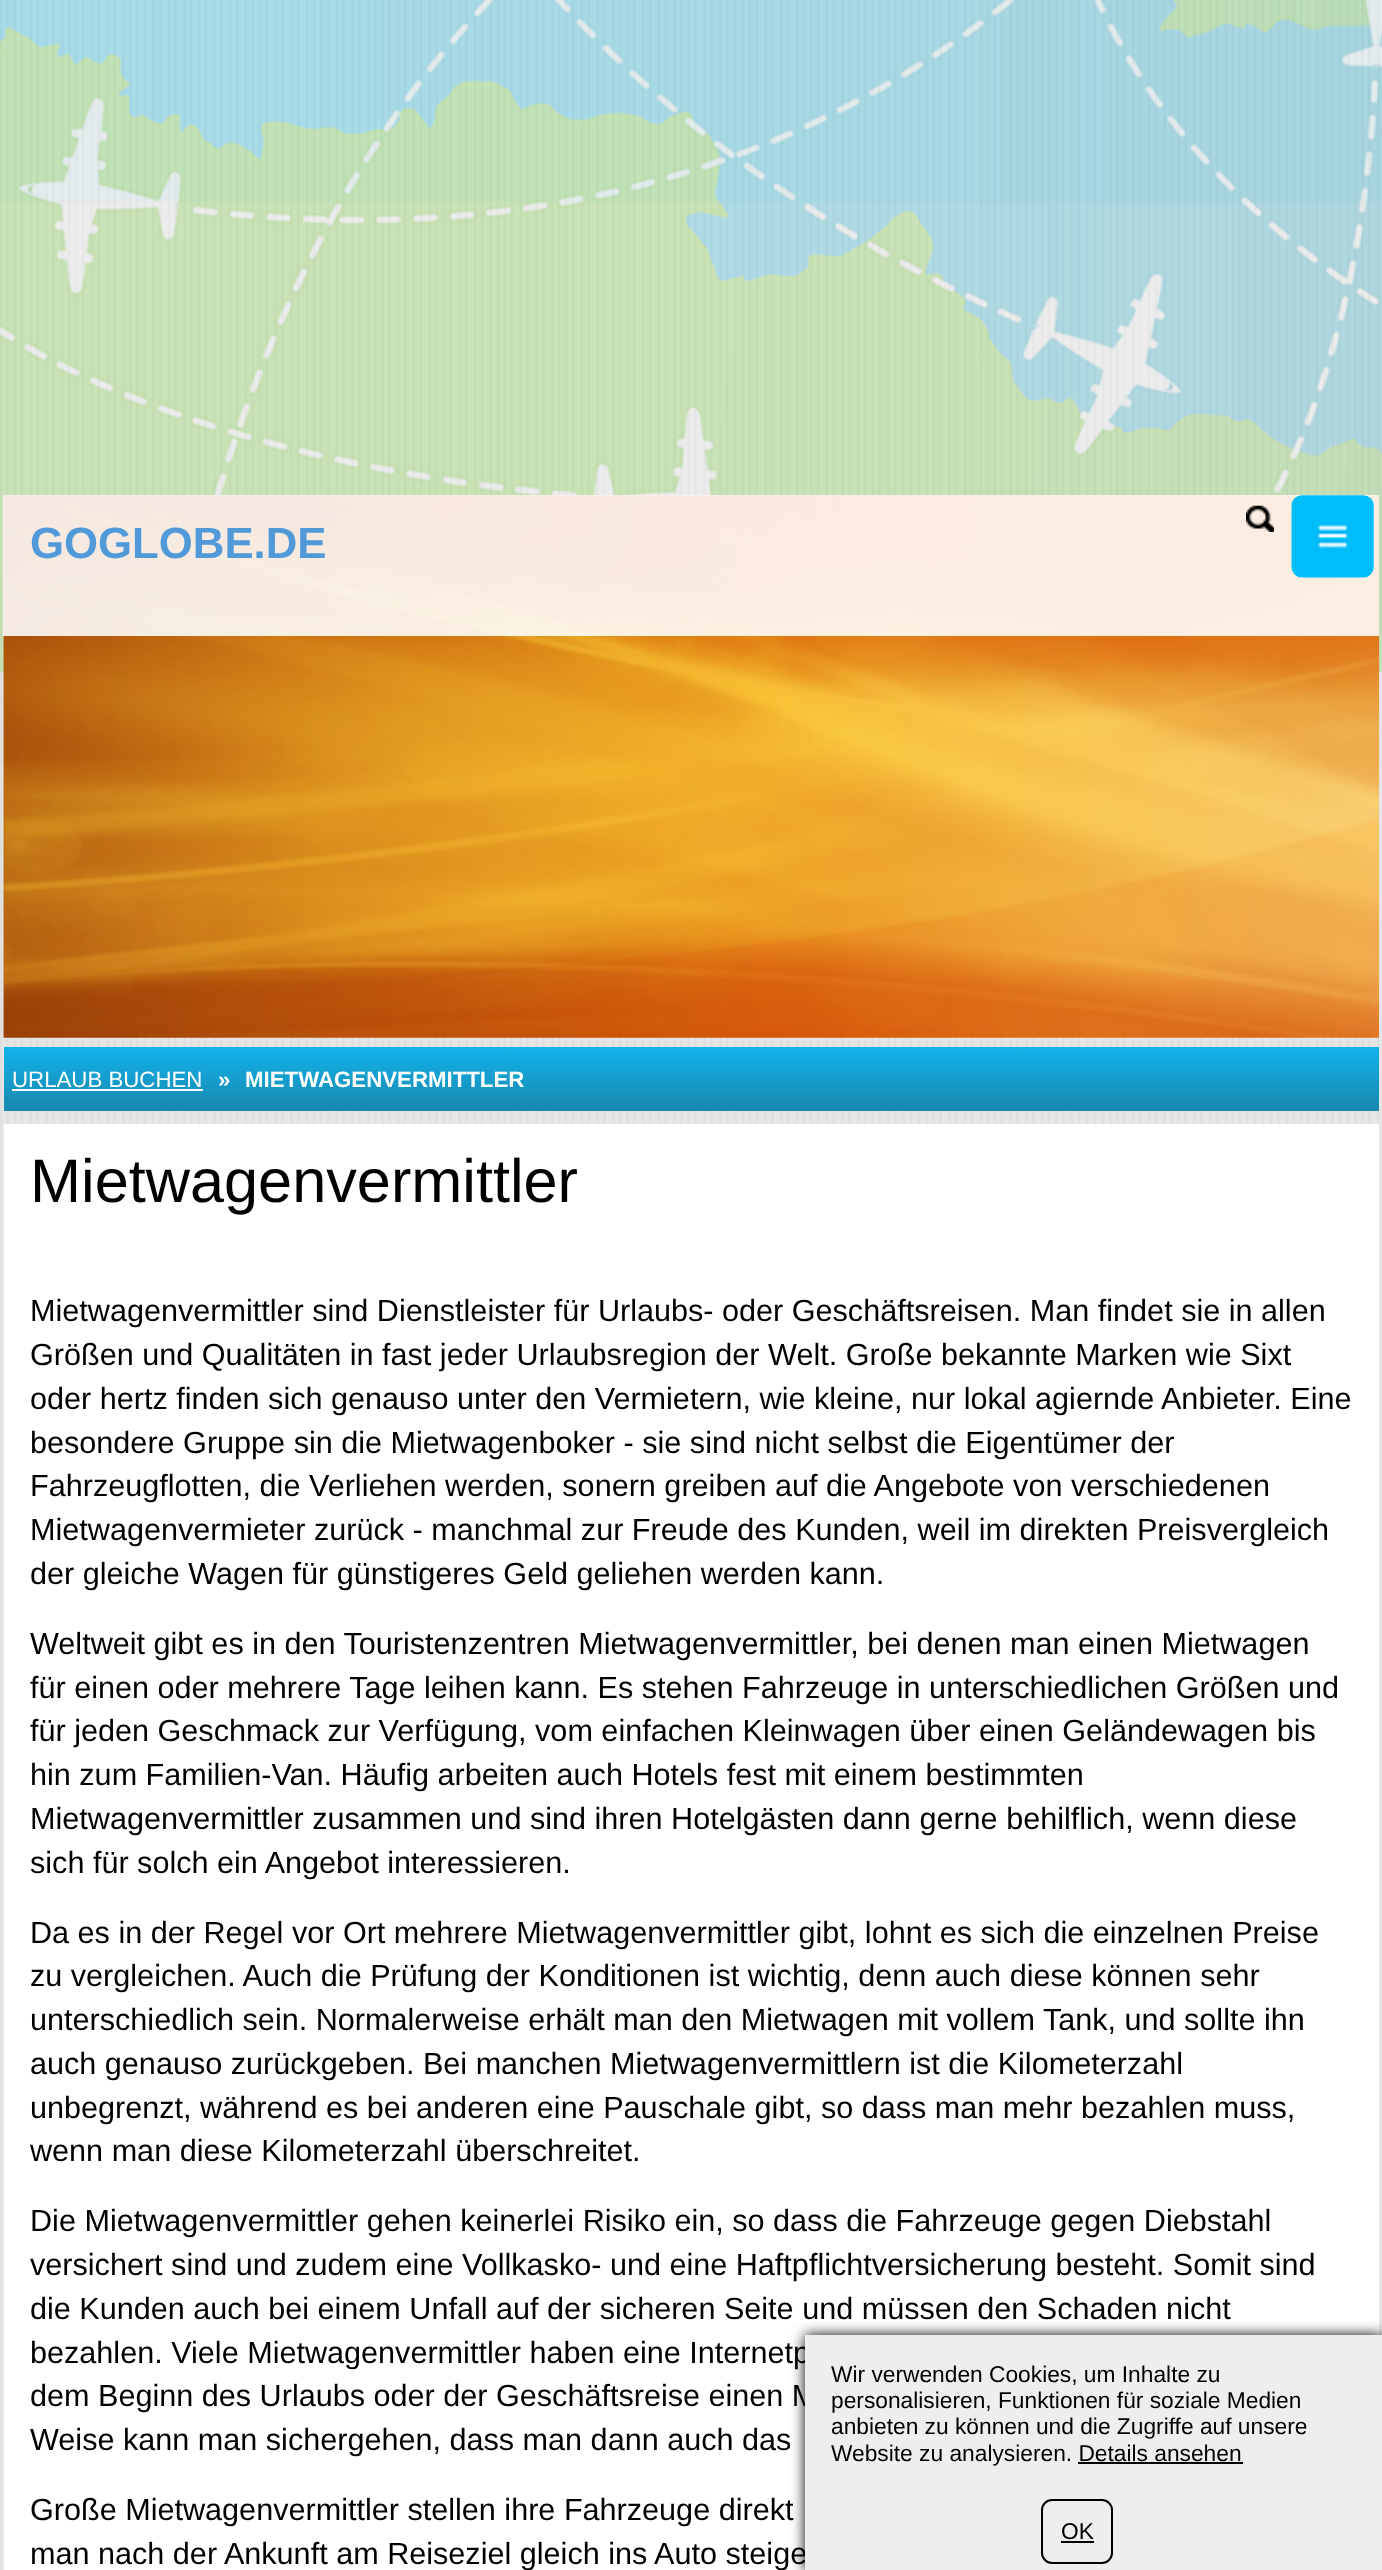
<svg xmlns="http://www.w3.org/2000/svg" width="1382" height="2570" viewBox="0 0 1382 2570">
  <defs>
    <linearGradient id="g1" gradientUnits="userSpaceOnUse" x1="691" y1="1111" x2="691" y2="1047"><stop offset="0" stop-color="#1787ae"/><stop offset="1" stop-color="#13b3eb"/></linearGradient>
    <filter id="blur1" x="-50%" y="-200%" width="200%" height="500%"><feGaussianBlur stdDeviation="7"/></filter>
  </defs>
  <rect width="100%" height="100%" fill="#ffffff"/>
  <image x="0" y="0" width="1382" height="2570" href="img1.png"/>
  <image x="0" y="0" width="1382" height="672" href="img2.png"/>
  <image x="3" y="495" width="1376" height="543" href="img3.png"/>
  <rect x="3" y="495" width="1376" height="141" fill="#ffffff" fill-opacity="0.88"/>
  <text x="30" y="558" font-family="Liberation Sans" font-size="43.75" font-weight="bold" fill="#509ada">GOGLOBE.DE</text>
  <image x="1246" y="505" width="28" height="27" href="img4.png"/>
  <image x="1291" y="495" width="83" height="83" href="img5.png"/>
  <rect x="4" y="1047" width="1375" height="64" fill="url(#g1)"/>
  <text x="12" y="1087" font-family="Liberation Sans" font-size="22.25" fill="#ffffff">URLAUB BUCHEN</text>
  <rect x="12" y="1089" width="191" height="2" fill="#ffffff"/>
  <text x="218" y="1087" font-family="Liberation Sans" font-size="22.25" font-weight="bold" fill="#ffffff">»</text>
  <text x="245" y="1087" font-family="Liberation Sans" font-size="22.25" font-weight="bold" fill="#ffffff">MIETWAGENVERMITTLER</text>
  <rect x="4" y="1124" width="1375" height="1446" fill="#ffffff"/>
  <text x="30" y="1202" font-family="Liberation Sans" font-size="61.25" fill="#000000">Mietwagenvermittler</text>
  <text x="30" y="1321" font-family="Liberation Sans" font-size="30.6" fill="#000000">Mietwagenvermittler sind Dienstleister für Urlaubs- oder Geschäftsreisen. Man findet sie in allen</text>
  <text x="30" y="1365" font-family="Liberation Sans" font-size="30.6" fill="#000000">Größen und Qualitäten in fast jeder Urlaubsregion der Welt. Große bekannte Marken wie Sixt</text>
  <text x="30" y="1409" font-family="Liberation Sans" font-size="30.6" fill="#000000">oder hertz finden sich genauso unter den Vermietern, wie kleine, nur lokal agiernde Anbieter. Eine</text>
  <text x="30" y="1453" font-family="Liberation Sans" font-size="30.6" fill="#000000">besondere Gruppe sin die Mietwagenboker - sie sind nicht selbst die Eigentümer der</text>
  <text x="30" y="1496" font-family="Liberation Sans" font-size="30.6" fill="#000000">Fahrzeugflotten, die Verliehen werden, sonern greiben auf die Angebote von verschiedenen</text>
  <text x="30" y="1540" font-family="Liberation Sans" font-size="30.6" fill="#000000">Mietwagenvermieter zurück - manchmal zur Freude des Kunden, weil im direkten Preisvergleich</text>
  <text x="30" y="1584" font-family="Liberation Sans" font-size="30.6" fill="#000000">der gleiche Wagen für günstigeres Geld geliehen werden kann.</text>
  <text x="30" y="1654" font-family="Liberation Sans" font-size="30.6" fill="#000000">Weltweit gibt es in den Touristenzentren Mietwagenvermittler, bei denen man einen Mietwagen</text>
  <text x="30" y="1698" font-family="Liberation Sans" font-size="30.6" fill="#000000">für einen oder mehrere Tage leihen kann. Es stehen Fahrzeuge in unterschiedlichen Größen und</text>
  <text x="30" y="1741" font-family="Liberation Sans" font-size="30.6" fill="#000000">für jeden Geschmack zur Verfügung, vom einfachen Kleinwagen über einen Geländewagen bis</text>
  <text x="30" y="1785" font-family="Liberation Sans" font-size="30.6" fill="#000000">hin zum Familien-Van. Häufig arbeiten auch Hotels fest mit einem bestimmten</text>
  <text x="30" y="1829" font-family="Liberation Sans" font-size="30.6" fill="#000000">Mietwagenvermittler zusammen und sind ihren Hotelgästen dann gerne behilflich, wenn diese</text>
  <text x="30" y="1873" font-family="Liberation Sans" font-size="30.6" fill="#000000">sich für solch ein Angebot interessieren.</text>
  <text x="30" y="1943" font-family="Liberation Sans" font-size="30.6" fill="#000000">Da es in der Regel vor Ort mehrere Mietwagenvermittler gibt, lohnt es sich die einzelnen Preise</text>
  <text x="30" y="1986" font-family="Liberation Sans" font-size="30.6" fill="#000000">zu vergleichen. Auch die Prüfung der Konditionen ist wichtig, denn auch diese können sehr</text>
  <text x="30" y="2030" font-family="Liberation Sans" font-size="30.6" fill="#000000">unterschiedlich sein. Normalerweise erhält man den Mietwagen mit vollem Tank, und sollte ihn</text>
  <text x="30" y="2074" font-family="Liberation Sans" font-size="30.6" fill="#000000">auch genauso zurückgeben. Bei manchen Mietwagenvermittlern ist die Kilometerzahl</text>
  <text x="30" y="2118" font-family="Liberation Sans" font-size="30.6" fill="#000000">unbegrenzt, während es bei anderen eine Pauschale gibt, so dass man mehr bezahlen muss,</text>
  <text x="30" y="2161" font-family="Liberation Sans" font-size="30.6" fill="#000000">wenn man diese Kilometerzahl überschreitet.</text>
  <text x="30" y="2231" font-family="Liberation Sans" font-size="30.6" fill="#000000">Die Mietwagenvermittler gehen keinerlei Risiko ein, so dass die Fahrzeuge gegen Diebstahl</text>
  <text x="30" y="2275" font-family="Liberation Sans" font-size="30.6" fill="#000000">versichert sind und zudem eine Vollkasko- und eine Haftpflichtversicherung besteht. Somit sind</text>
  <text x="30" y="2319" font-family="Liberation Sans" font-size="30.6" fill="#000000">die Kunden auch bei einem Unfall auf der sicheren Seite und müssen den Schaden nicht</text>
  <text x="30" y="2363" font-family="Liberation Sans" font-size="30.6" fill="#000000">bezahlen. Viele Mietwagenvermittler haben eine Internetp</text>
  <text x="30" y="2406" font-family="Liberation Sans" font-size="30.6" fill="#000000">dem Beginn des Urlaubs oder der Geschäftsreise einen M</text>
  <text x="30" y="2450" font-family="Liberation Sans" font-size="30.6" fill="#000000">Weise kann man sichergehen, dass man dann auch das</text>
  <text x="30" y="2520" font-family="Liberation Sans" font-size="30.6" fill="#000000">Große Mietwagenvermittler stellen ihre Fahrzeuge direkt</text>
  <text x="30" y="2564" font-family="Liberation Sans" font-size="30.6" fill="#000000">man nach der Ankunft am Reiseziel gleich ins Auto steige</text>
  <rect x="805" y="2335" width="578" height="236" fill="#000000" filter="url(#blur1)"/>
  <rect x="805" y="2335" width="577" height="235" fill="#eeeeee"/>
  <text x="831" y="2382" font-family="Liberation Sans" font-size="22.75" fill="#000000">Wir verwenden Cookies, um Inhalte zu</text>
  <text x="831" y="2408" font-family="Liberation Sans" font-size="22.75" fill="#000000">personalisieren, Funktionen für soziale Medien</text>
  <text x="831" y="2434" font-family="Liberation Sans" font-size="22.75" fill="#000000">anbieten zu können und die Zugriffe auf unsere</text>
  <text x="831" y="2461" font-family="Liberation Sans" font-size="22.75" fill="#000000">Website zu analysieren. Details ansehen</text>
  <rect x="1078" y="2462" width="165" height="2" fill="#000000"/>
  <rect x="1042" y="2500" width="70" height="63" rx="10" fill="none" stroke="#000000" stroke-width="2"/>
  <text x="1061" y="2539" font-family="Liberation Sans" font-size="22.75" fill="#000000">OK</text>
  <rect x="1061" y="2541" width="33" height="2" fill="#000000"/>
</svg>
